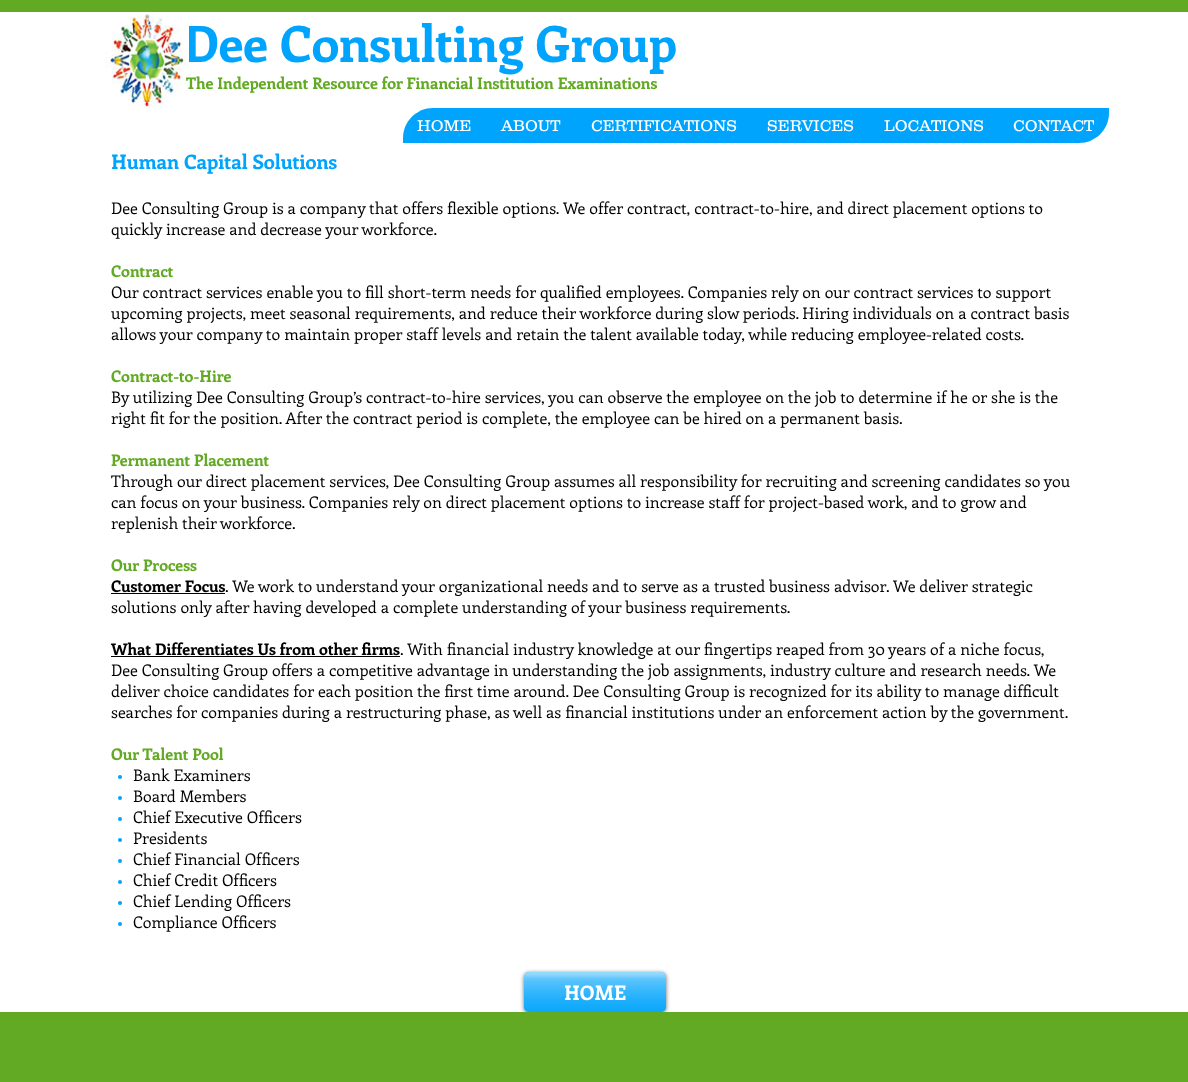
<svg xmlns="http://www.w3.org/2000/svg" width="1188" height="1082" viewBox="0 0 1188 1082">
  <defs>
    <filter id="blur1" x="-50%" y="-200%" width="200%" height="500%"><feGaussianBlur stdDeviation="2"/></filter>
  </defs>
  <rect width="100%" height="100%" fill="#ffffff"/>
  <rect x="0" y="0" width="1188" height="12" fill="#62aa23"/>
  <text x="183" y="62" font-family="Enriqueta" font-size="50" font-weight="bold" fill="#00a4fc">Dee Consulting Group</text>
  <image x="105" y="12" width="84" height="96" href="img1.png"/>
  <text x="186" y="89" font-family="Enriqueta" font-size="16" font-weight="bold" fill="#62aa23">The Independent Resource for Financial Institution Examinations</text>
  <path d="M433 108H1109V113C1109 129.5 1095.5 143 1079 143H403V138C403 121.5 416.5 108 433 108Z" fill="#00a4fc"/>
  <text x="417" y="131" font-family="'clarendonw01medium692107'" font-size="16" font-weight="300" fill="#ffffff">HOME</text>
  <text x="501" y="131" font-family="'clarendonw01medium692107'" font-size="16" font-weight="300" fill="#ffffff">ABOUT</text>
  <text x="591" y="131" font-family="'clarendonw01medium692107'" font-size="16" font-weight="300" fill="#ffffff">CERTIFICATIONS</text>
  <text x="767" y="131" font-family="'clarendonw01medium692107'" font-size="16" font-weight="300" fill="#ffffff">SERVICES</text>
  <text x="884" y="131" font-family="'clarendonw01medium692107'" font-size="16" font-weight="300" fill="#ffffff">LOCATIONS</text>
  <text x="1013" y="131" font-family="'clarendonw01medium692107'" font-size="16" font-weight="300" fill="#ffffff">CONTACT</text>
  <text x="111" y="169" font-family="Enriqueta" font-size="20" font-weight="bold" fill="#00a4fc">Human Capital Solutions</text>
  <text x="111" y="214" font-family="Enriqueta" font-size="16" fill="#000000">Dee Consulting Group is a company that offers flexible options. We offer contract, contract-to-hire, and direct placement options to</text>
  <text x="111" y="235" font-family="Enriqueta" font-size="16" fill="#000000">quickly increase and decrease your workforce.</text>
  <text x="111" y="277" font-family="Enriqueta" font-size="16" font-weight="bold" fill="#62aa23">Contract</text>
  <text x="111" y="298" font-family="Enriqueta" font-size="16" fill="#000000">Our contract services enable you to fill short-term needs for qualified employees. Companies rely on our contract services to support</text>
  <text x="111" y="319" font-family="Enriqueta" font-size="16" fill="#000000">upcoming projects, meet seasonal requirements, and reduce their workforce during slow periods. Hiring individuals on a contract basis</text>
  <text x="111" y="340" font-family="Enriqueta" font-size="16" fill="#000000">allows your company to maintain proper staff levels and retain the talent available today, while reducing employee-related costs.</text>
  <text x="111" y="382" font-family="Enriqueta" font-size="16" font-weight="bold" fill="#62aa23">Contract-to-Hire</text>
  <text x="111" y="403" font-family="Enriqueta" font-size="16" fill="#000000">By utilizing Dee Consulting Group’s contract-to-hire services, you can observe the employee on the job to determine if he or she is the</text>
  <text x="111" y="424" font-family="Enriqueta" font-size="16" fill="#000000">right fit for the position. After the contract period is complete, the employee can be hired on a permanent basis.</text>
  <text x="111" y="466" font-family="Enriqueta" font-size="16" font-weight="bold" fill="#62aa23">Permanent Placement</text>
  <text x="111" y="487" font-family="Enriqueta" font-size="16" fill="#000000">Through our direct placement services, Dee Consulting Group assumes all responsibility for recruiting and screening candidates so you</text>
  <text x="111" y="508" font-family="Enriqueta" font-size="16" fill="#000000">can focus on your business. Companies rely on direct placement options to increase staff for project-based work, and to grow and</text>
  <text x="111" y="529" font-family="Enriqueta" font-size="16" fill="#000000">replenish their workforce.</text>
  <text x="111" y="571" font-family="Enriqueta" font-size="16" font-weight="bold" fill="#62aa23">Our Process</text>
  <text x="111" y="592" font-family="Enriqueta" font-size="16" font-weight="bold" fill="#000000">Customer Focus</text>
  <text x="225" y="592" font-family="Enriqueta" font-size="16" fill="#000000">. We work to understand your organizational needs and to serve as a trusted business advisor. We deliver strategic</text>
  <rect x="111" y="593" width="114" height="1" fill="#000000"/>
  <text x="111" y="613" font-family="Enriqueta" font-size="16" fill="#000000">solutions only after having developed a complete understanding of your business requirements.</text>
  <text x="111" y="655" font-family="Enriqueta" font-size="16" font-weight="bold" fill="#000000">What Differentiates Us from other firms</text>
  <text x="400" y="655" font-family="Enriqueta" font-size="16" fill="#000000">. With financial industry knowledge at our fingertips reaped from 30 years of a niche focus,</text>
  <rect x="111" y="656" width="289" height="1" fill="#000000"/>
  <text x="111" y="676" font-family="Enriqueta" font-size="16" fill="#000000">Dee Consulting Group offers a competitive advantage in understanding the job assignments, industry culture and research needs. We</text>
  <text x="111" y="697" font-family="Enriqueta" font-size="16" fill="#000000">deliver choice candidates for each position the first time around. Dee Consulting Group is recognized for its ability to manage difficult</text>
  <text x="111" y="718" font-family="Enriqueta" font-size="16" fill="#000000">searches for companies during a restructuring phase, as well as financial institutions under an enforcement action by the government.</text>
  <text x="111" y="760" font-family="Enriqueta" font-size="16" font-weight="bold" fill="#62aa23">Our Talent Pool</text>
  <circle cx="120" cy="777" r="2" fill="#00a4fc"/>
  <text x="133" y="781" font-family="Enriqueta" font-size="16" fill="#000000">Bank Examiners</text>
  <circle cx="120" cy="798" r="2" fill="#00a4fc"/>
  <text x="133" y="802" font-family="Enriqueta" font-size="16" fill="#000000">Board Members</text>
  <circle cx="120" cy="819" r="2" fill="#00a4fc"/>
  <text x="133" y="823" font-family="Enriqueta" font-size="16" fill="#000000">Chief Executive Officers</text>
  <circle cx="120" cy="840" r="2" fill="#00a4fc"/>
  <text x="133" y="844" font-family="Enriqueta" font-size="16" fill="#000000">Presidents</text>
  <circle cx="120" cy="861" r="2" fill="#00a4fc"/>
  <text x="133" y="865" font-family="Enriqueta" font-size="16" fill="#000000">Chief Financial Officers</text>
  <circle cx="120" cy="882" r="2" fill="#00a4fc"/>
  <text x="133" y="886" font-family="Enriqueta" font-size="16" fill="#000000">Chief Credit Officers</text>
  <circle cx="120" cy="903" r="2" fill="#00a4fc"/>
  <text x="133" y="907" font-family="Enriqueta" font-size="16" fill="#000000">Chief Lending Officers</text>
  <circle cx="120" cy="924" r="2" fill="#00a4fc"/>
  <text x="133" y="928" font-family="Enriqueta" font-size="16" fill="#000000">Compliance Officers</text>
  <rect x="524" y="973" width="142" height="40" rx="5" fill="#000000" fill-opacity="0.6" filter="url(#blur1)"/>
  <rect x="524" y="972" width="142" height="40" rx="5" fill="#00a4fc"/>
  <image x="524" y="972" width="142" height="40" href="img2.png"/>
  <text x="564" y="1000" font-family="Enriqueta" font-size="20" font-weight="bold" fill="#ffffff">HOME</text>
  <rect x="0" y="1012" width="1188" height="70" fill="#62aa23"/>
</svg>
